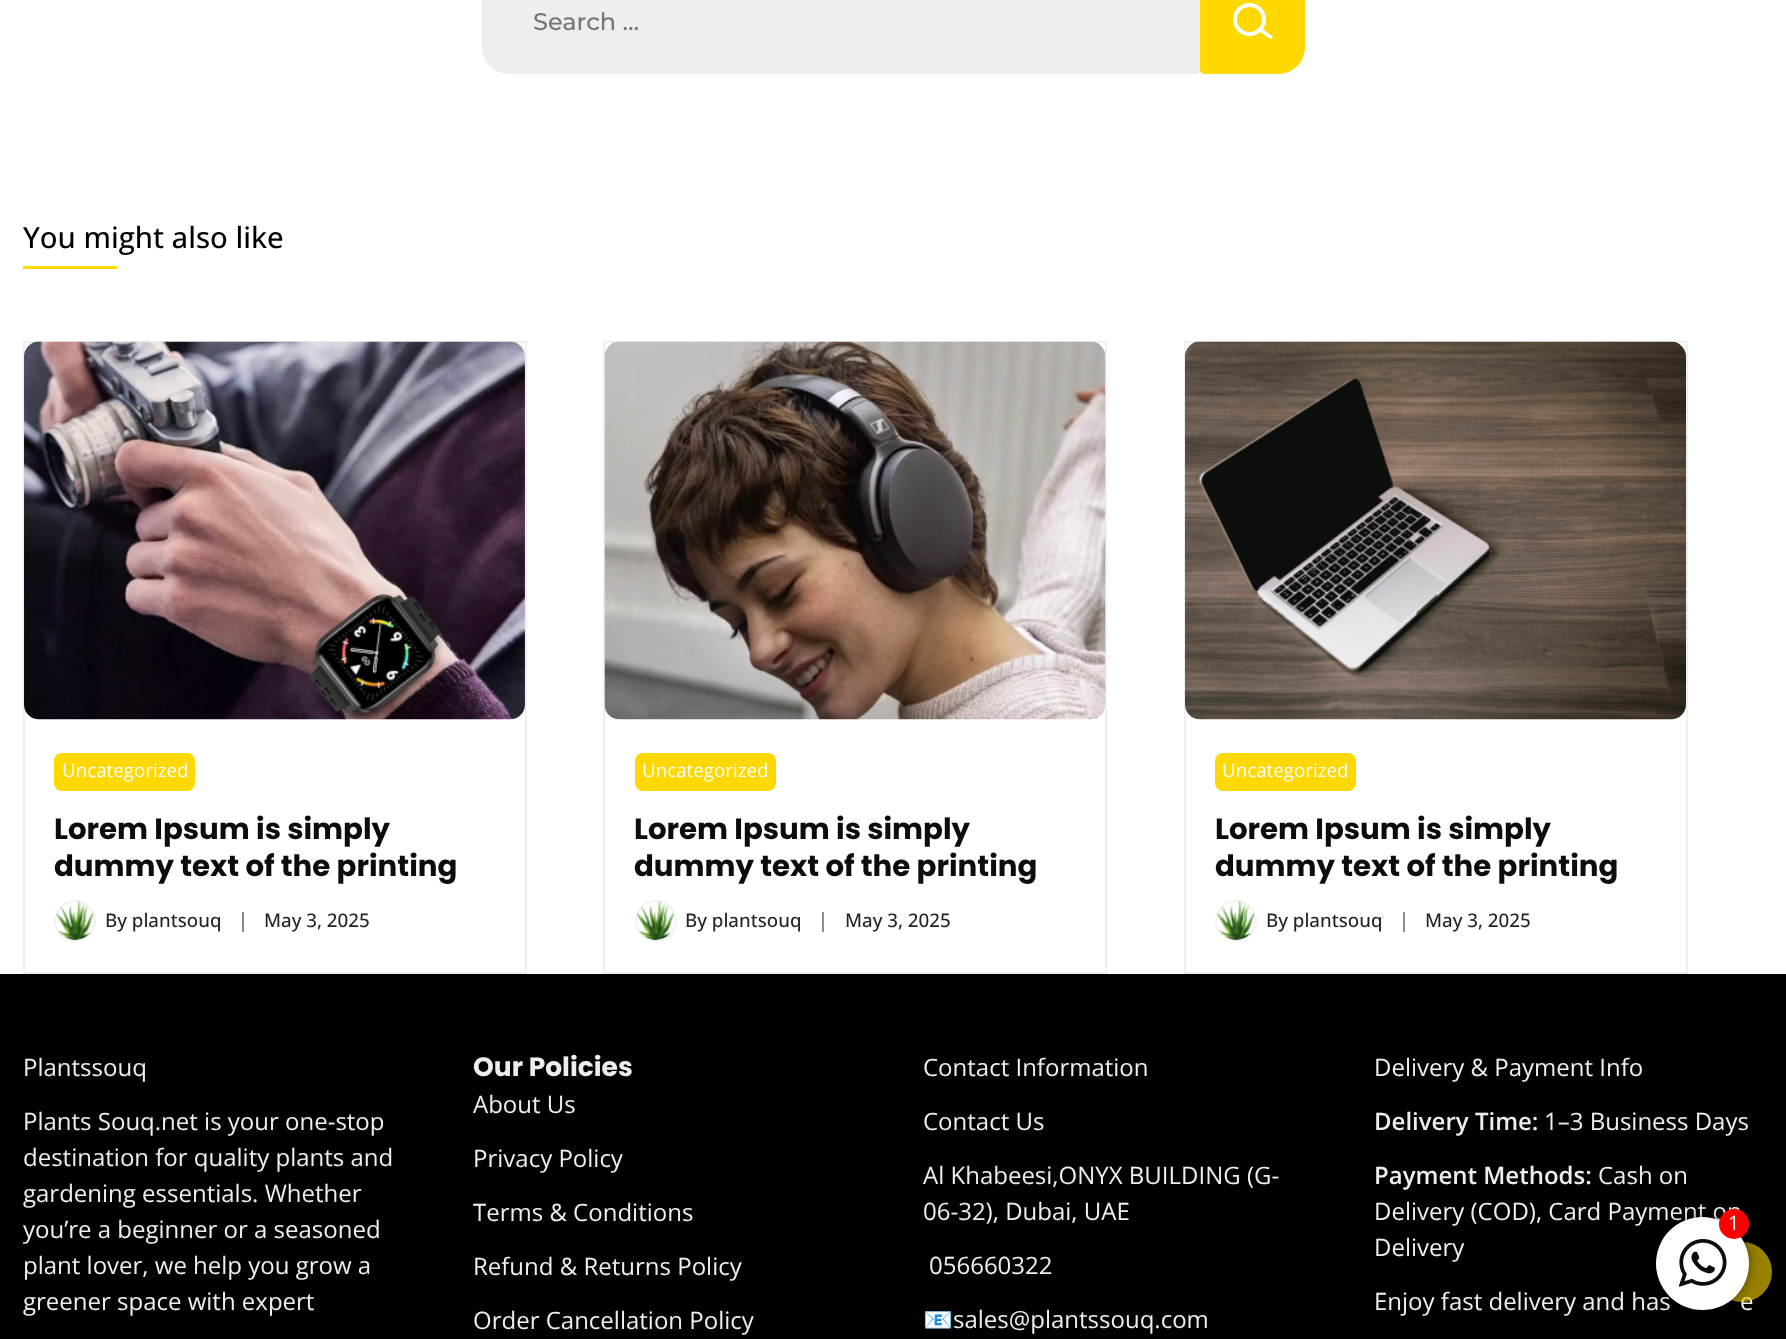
<svg xmlns="http://www.w3.org/2000/svg" width="1786" height="1339" viewBox="0 0 1786 1339">
  <defs>
    <filter id="blur1" x="-50%" y="-200%" width="200%" height="500%"><feGaussianBlur stdDeviation="7.5"/></filter>
  </defs>
  <rect width="100%" height="100%" fill="#ffffff"/>
  <path d="M509-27H1195C1198-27 1200-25 1200-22V69C1200 72 1198 74 1195 74H509C494 74 482 62 482 47V0C482-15 494-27 509-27Z" fill="#eeeeee"/>
  <text x="533" y="30" font-family="Montserrat" font-size="24" font-weight="500" fill="#757575">Search …</text>
  <path d="M1205-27H1278C1293-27 1305-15 1305 0V47C1305 62 1293 74 1278 74H1205C1202 74 1200 72 1200 69V-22C1200-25 1202-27 1205-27Z" fill="#ffd800"/>
  <circle cx="1249.5" cy="19.5" r="14.5" fill="none" stroke="#ffffff" stroke-width="3.9"/>
  <path d="M1261 30L1270.5 37" fill="none" stroke="#ffffff" stroke-width="3.9" stroke-linecap="round" stroke-linejoin="round"/>
  <text x="23" y="248" font-family="Open Sans" font-size="29.25" font-weight="500" fill="#000000">You might also like</text>
  <rect x="23" y="266" width="94" height="3" fill="#ffd800"/>
  <rect x="24" y="342" width="502" height="631" fill="none" stroke="#efefef" stroke-width="2"/>
  <image x="24" y="341" width="501" height="379" href="img1.png"/>
  <rect x="54" y="753" width="141" height="38" rx="8" fill="#ffd800"/>
  <text x="62" y="777" font-family="Open Sans" font-size="18.75" fill="#ffffff">Uncategorized</text>
  <text x="54" y="839" font-family="Poppins" font-size="29.25" font-weight="bold" fill="#0c0c0c">Lorem Ipsum is simply</text>
  <text x="54" y="876" font-family="Poppins" font-size="29.25" font-weight="bold" fill="#0c0c0c">dummy text of the printing</text>
  <circle cx="75" cy="921" r="20" fill="none" stroke="#f2f2f2" stroke-width="2"/>
  <image x="56" y="901" width="38" height="39" href="img2.png"/>
  <rect x="242" y="912" width="2" height="20" fill="#8d8e90"/>
  <text x="105" y="927" font-family="Open Sans" font-size="18.75" font-weight="500" fill="#242424">By plantsouq</text>
  <text x="264" y="927" font-family="Open Sans" font-size="18.75" font-weight="500" fill="#242424">May 3, 2025</text>
  <rect x="604" y="342" width="502" height="631" fill="none" stroke="#efefef" stroke-width="2"/>
  <image x="604" y="341" width="502" height="379" href="img3.png"/>
  <rect x="635" y="753" width="141" height="38" rx="8" fill="#ffd800"/>
  <text x="642" y="777" font-family="Open Sans" font-size="18.75" fill="#ffffff">Uncategorized</text>
  <text x="634" y="839" font-family="Poppins" font-size="29.25" font-weight="bold" fill="#0c0c0c">Lorem Ipsum is simply</text>
  <text x="634" y="876" font-family="Poppins" font-size="29.25" font-weight="bold" fill="#0c0c0c">dummy text of the printing</text>
  <circle cx="656" cy="921" r="20" fill="none" stroke="#f2f2f2" stroke-width="2"/>
  <image x="637" y="901" width="37" height="39" href="img4.png"/>
  <rect x="822" y="912" width="2" height="20" fill="#8d8e90"/>
  <text x="685" y="927" font-family="Open Sans" font-size="18.75" font-weight="500" fill="#242424">By plantsouq</text>
  <text x="845" y="927" font-family="Open Sans" font-size="18.75" font-weight="500" fill="#242424">May 3, 2025</text>
  <rect x="1185" y="342" width="502" height="631" fill="none" stroke="#efefef" stroke-width="2"/>
  <image x="1185" y="341" width="501" height="379" href="img5.png"/>
  <rect x="1215" y="753" width="141" height="38" rx="8" fill="#ffd800"/>
  <text x="1222" y="777" font-family="Open Sans" font-size="18.75" fill="#ffffff">Uncategorized</text>
  <text x="1215" y="839" font-family="Poppins" font-size="29.25" font-weight="bold" fill="#0c0c0c">Lorem Ipsum is simply</text>
  <text x="1215" y="876" font-family="Poppins" font-size="29.25" font-weight="bold" fill="#0c0c0c">dummy text of the printing</text>
  <circle cx="1236" cy="921" r="20" fill="none" stroke="#f2f2f2" stroke-width="2"/>
  <image x="1217" y="901" width="38" height="39" href="img2.png"/>
  <rect x="1403" y="912" width="2" height="20" fill="#8d8e90"/>
  <text x="1266" y="927" font-family="Open Sans" font-size="18.75" font-weight="500" fill="#242424">By plantsouq</text>
  <text x="1425" y="927" font-family="Open Sans" font-size="18.75" font-weight="500" fill="#242424">May 3, 2025</text>
  <rect x="0" y="974" width="1786" height="365" fill="#000000"/>
  <text x="23" y="1076" font-family="Open Sans" font-size="24" fill="#eeeeee">Plantssouq</text>
  <text x="23" y="1130" font-family="Open Sans" font-size="24" fill="#eeeeee">Plants Souq.net is your one-stop</text>
  <text x="23" y="1166" font-family="Open Sans" font-size="24" fill="#eeeeee">destination for quality plants and</text>
  <text x="23" y="1202" font-family="Open Sans" font-size="24" fill="#eeeeee">gardening essentials. Whether</text>
  <text x="23" y="1238" font-family="Open Sans" font-size="24" fill="#eeeeee">you’re a beginner or a seasoned</text>
  <text x="23" y="1274" font-family="Open Sans" font-size="24" fill="#eeeeee">plant lover, we help you grow a</text>
  <text x="23" y="1310" font-family="Open Sans" font-size="24" fill="#eeeeee">greener space with expert</text>
  <text x="473" y="1076" font-family="Poppins" font-size="26.5" font-weight="bold" fill="#eeeeee">Our Policies</text>
  <text x="473" y="1113" font-family="Open Sans" font-size="24" fill="#eeeeee">About Us</text>
  <text x="473" y="1167" font-family="Open Sans" font-size="24" fill="#eeeeee">Privacy Policy</text>
  <text x="473" y="1221" font-family="Open Sans" font-size="24" fill="#eeeeee">Terms &amp; Conditions</text>
  <text x="473" y="1275" font-family="Open Sans" font-size="24" fill="#eeeeee">Refund &amp; Returns Policy</text>
  <text x="473" y="1329" font-family="Open Sans" font-size="24" fill="#eeeeee">Order Cancellation Policy</text>
  <text x="923" y="1076" font-family="Open Sans" font-size="24" fill="#eeeeee">Contact Information</text>
  <text x="923" y="1130" font-family="Open Sans" font-size="24" fill="#eeeeee">Contact Us</text>
  <text x="923" y="1184" font-family="Open Sans" font-size="24" fill="#eeeeee">Al Khabeesi,ONYX BUILDING (G-</text>
  <text x="923" y="1220" font-family="Open Sans" font-size="24" fill="#eeeeee">06-32), Dubai, UAE</text>
  <text x="929" y="1274" font-family="Open Sans" font-size="24" fill="#eeeeee">056660322</text>
  <text x="923" y="1328" font-family="Noto Color Emoji" font-size="24" fill="#eeeeee">📧</text>
  <text x="953" y="1328" font-family="Open Sans" font-size="24" fill="#eeeeee">sales@plantssouq.com</text>
  <text x="1374" y="1076" font-family="Open Sans" font-size="24" fill="#eeeeee">Delivery &amp; Payment Info</text>
  <text x="1374" y="1130" font-family="Open Sans" font-size="24" font-weight="600" fill="#eeeeee">Delivery Time:</text>
  <text x="1544" y="1130" font-family="Open Sans" font-size="24" fill="#eeeeee">1–3 Business Days</text>
  <text x="1374" y="1184" font-family="Open Sans" font-size="24" font-weight="600" fill="#eeeeee">Payment Methods:</text>
  <text x="1598" y="1184" font-family="Open Sans" font-size="24" fill="#eeeeee">Cash on</text>
  <text x="1374" y="1220" font-family="Open Sans" font-size="24" fill="#eeeeee">Delivery (COD), Card Payment on</text>
  <text x="1374" y="1256" font-family="Open Sans" font-size="24" fill="#eeeeee">Delivery</text>
  <text x="1374" y="1310" font-family="Open Sans" font-size="24" fill="#eeeeee">Enjoy fast delivery and has</text>
  <text x="1740" y="1310" font-family="Open Sans" font-size="24" fill="#eeeeee">e</text>
  <circle cx="1742" cy="1272" r="30" fill="#ffd800" fill-opacity="0.6"/>
  <image x="1748" y="1268" width="1" height="1" href="img7.png"/>
  <rect x="1661" y="1221" width="84" height="84" rx="42" fill="#0c0c0c" filter="url(#blur1)"/>
  <circle cx="1702.5" cy="1263.5" r="46.5" fill="#ffffff"/>
  <circle cx="1734" cy="1224" r="15" fill="#ff0000"/>
  <text x="1728" y="1230" font-family="Open Sans" font-size="20" fill="#ffffff">1</text>
  <image x="1679" y="1239" width="48" height="48" href="img6.png"/>
</svg>
